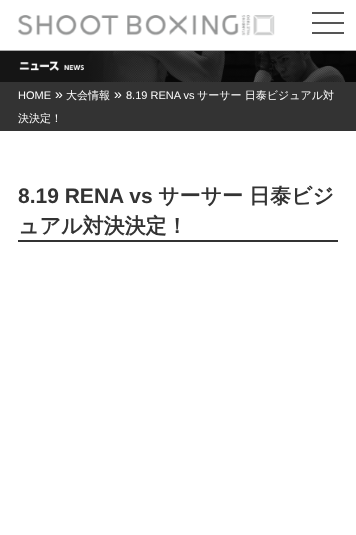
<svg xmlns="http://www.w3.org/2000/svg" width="356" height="535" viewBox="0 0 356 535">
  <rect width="100%" height="100%" fill="#ffffff"/>
  <rect x="0" y="50" width="356" height="1" fill="#aaaaaa"/>
  <image x="18" y="15" width="257" height="21" href="img1.png"/>
  <rect x="312" y="22" width="32" height="2" fill="#555555"/>
  <rect x="312" y="12" width="32" height="2" fill="#555555"/>
  <rect x="312" y="32" width="32" height="2" fill="#555555"/>
  <image x="0" y="51" width="356" height="31" href="img2.png"/>
  <rect x="0" y="82" width="356" height="49" fill="#333333"/>
  <text x="18" y="99" font-family="Liberation Sans" font-size="11" fill="#ffffff">HOME</text>
  <text x="55" y="99" font-family="Liberation Sans" font-size="14" fill="#ffffff">»</text>
  <text x="66" y="99" font-family="WenQuanYi Zen Hei" font-size="11" font-weight="500" fill="#ffffff">大会情報</text>
  <text x="114" y="99" font-family="Liberation Sans" font-size="14" fill="#ffffff">»</text>
  <text x="126" y="99" font-family="Liberation Sans" font-size="11" fill="#ffffff">8.19 RENA vs</text>
  <text x="197" y="99" font-family="WenQuanYi Zen Hei" font-size="11" font-weight="500" fill="#ffffff">サーサー 日泰ビジュアル対</text>
  <text x="18" y="122" font-family="WenQuanYi Zen Hei" font-size="11" font-weight="500" fill="#ffffff">決決定！</text>
  <rect x="18" y="240" width="320" height="2" fill="#333333"/>
  <text x="18" y="203" font-family="Liberation Sans" font-size="21" font-weight="bold" fill="#333333">8.19 RENA vs</text>
  <text x="158" y="203" font-family="WenQuanYi Zen Hei" font-size="21" font-weight="bold" fill="#333333">サーサー</text>
  <text x="249" y="203" font-family="WenQuanYi Zen Hei" font-size="21" font-weight="bold" fill="#333333">日泰ビジ</text>
  <text x="18" y="233" font-family="WenQuanYi Zen Hei" font-size="21" font-weight="bold" fill="#333333">ュアル対決決定！</text>
</svg>
